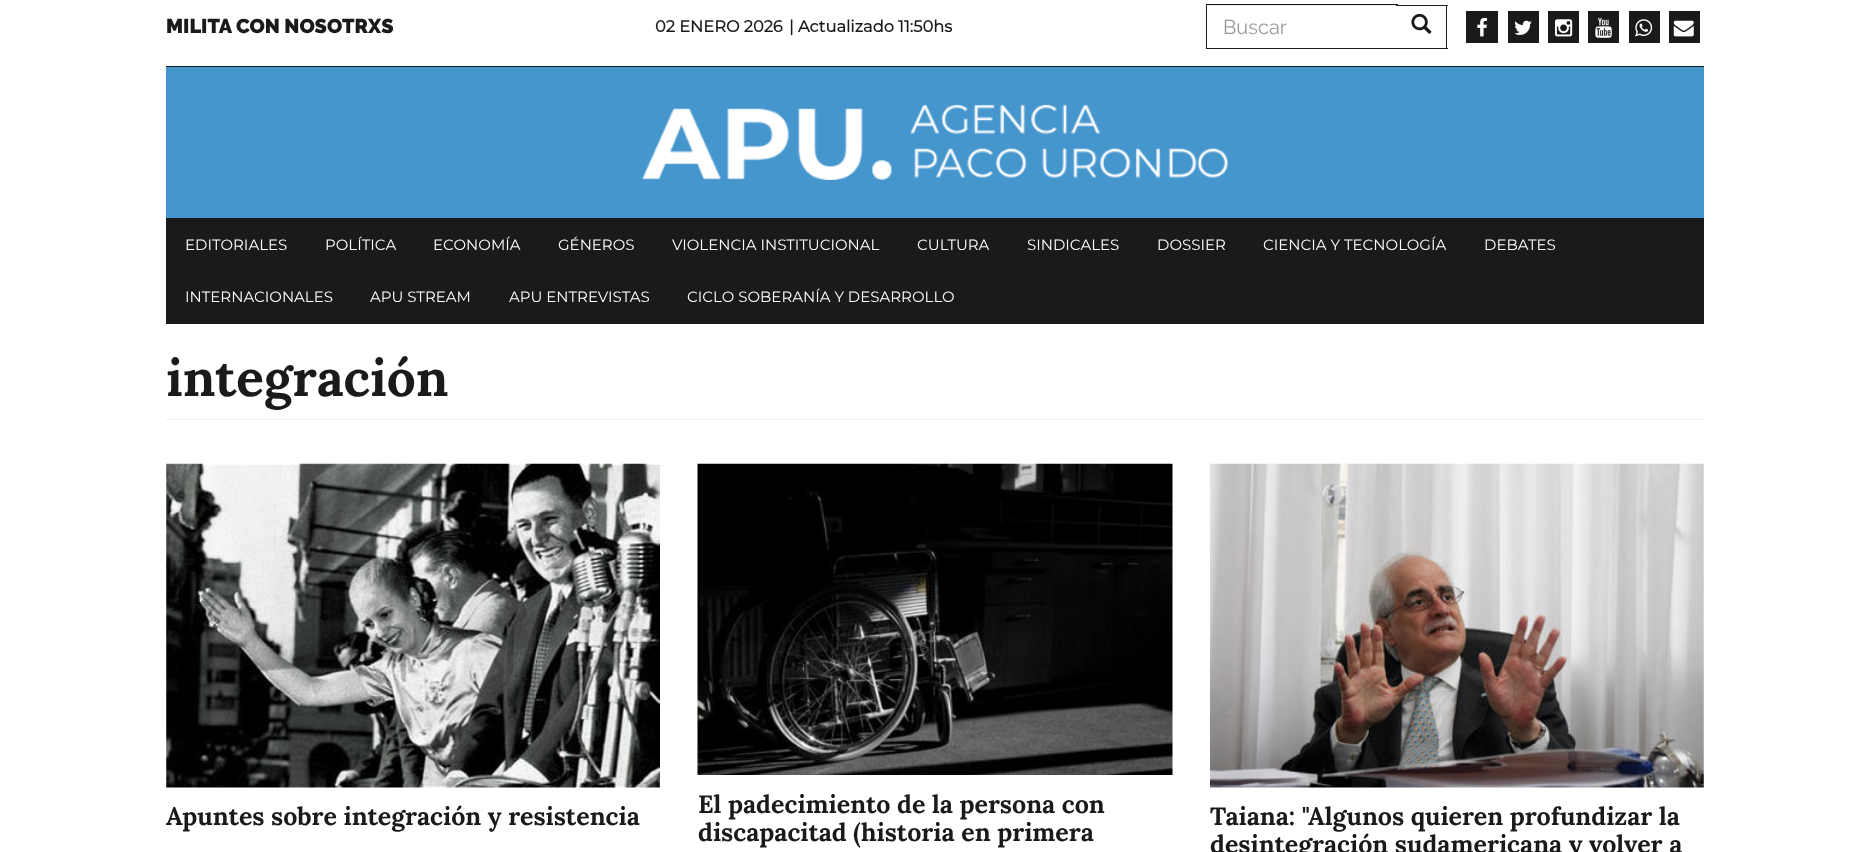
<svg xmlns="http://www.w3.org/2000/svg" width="1870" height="852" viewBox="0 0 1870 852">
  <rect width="100%" height="100%" fill="#ffffff"/>
  <text x="166" y="33" font-family="Raleway" font-size="20" font-weight="900" fill="#1a1a1a">MILITA CON NOSOTRXS</text>
  <text x="655" y="32" font-family="Montserrat" font-size="16.25" font-weight="bold" fill="#1a1a1a">02 ENERO 2026</text>
  <text x="789" y="32" font-family="Montserrat" font-size="16.25" font-weight="bold" fill="#1a1a1a">| Actualizado 11:50hs</text>
  <rect x="1208" y="5" width="190" height="1" fill="#ececec"/>
  <rect x="1206" y="4" width="192" height="1" fill="#1a1a1a"/>
  <rect x="1206" y="48" width="192" height="1" fill="#1a1a1a"/>
  <rect x="1206" y="4" width="1" height="45" fill="#1a1a1a"/>
  <text x="1223" y="34" font-family="Raleway" font-size="20" fill="#999999">Buscar</text>
  <rect x="1396" y="5" width="52" height="1" fill="#1a1a1a"/>
  <rect x="1446" y="5" width="1" height="44" fill="#1a1a1a"/>
  <rect x="1396" y="48" width="52" height="1" fill="#1a1a1a"/>
  <image x="1411" y="13" width="21" height="21" href="img1.png"/>
  <rect x="1466" y="11" width="32" height="32" fill="#1a1a1a"/>
  <image x="1477" y="17" width="10" height="20" href="img2.png"/>
  <rect x="1508" y="11" width="31" height="32" fill="#1a1a1a"/>
  <image x="1514" y="20" width="18" height="15" href="img3.png"/>
  <rect x="1548" y="11" width="31" height="32" fill="#1a1a1a"/>
  <image x="1555" y="19" width="18" height="18" href="img4.png"/>
  <rect x="1588" y="11" width="31" height="32" fill="#1a1a1a"/>
  <image x="1595" y="17" width="17" height="21" href="img5.png"/>
  <rect x="1629" y="11" width="31" height="32" fill="#1a1a1a"/>
  <image x="1635" y="19" width="18" height="18" href="img6.png"/>
  <rect x="1669" y="11" width="31" height="32" fill="#1a1a1a"/>
  <image x="1673" y="20" width="21" height="17" href="img7.png"/>
  <rect x="166" y="67" width="1538" height="151" fill="#4696ce"/>
  <rect x="166" y="66" width="1538" height="1" fill="#1a1a1a"/>
  <rect x="166" y="218" width="1538" height="106" fill="#1a1a1a"/>
  <image x="642" y="104" width="586" height="76" href="img8.png"/>
  <text x="185" y="250" font-family="Montserrat" font-size="15" fill="#ffffff">EDITORIALES</text>
  <text x="325" y="250" font-family="Montserrat" font-size="15" fill="#ffffff">POLÍTICA</text>
  <text x="433" y="250" font-family="Montserrat" font-size="15" fill="#ffffff">ECONOMÍA</text>
  <text x="558" y="250" font-family="Montserrat" font-size="15" fill="#ffffff">GÉNEROS</text>
  <text x="672" y="250" font-family="Montserrat" font-size="15" fill="#ffffff">VIOLENCIA INSTITUCIONAL</text>
  <text x="917" y="250" font-family="Montserrat" font-size="15" fill="#ffffff">CULTURA</text>
  <text x="1027" y="250" font-family="Montserrat" font-size="15" fill="#ffffff">SINDICALES</text>
  <text x="1157" y="250" font-family="Montserrat" font-size="15" fill="#ffffff">DOSSIER</text>
  <text x="1263" y="250" font-family="Montserrat" font-size="15" fill="#ffffff">CIENCIA Y TECNOLOGÍA</text>
  <text x="1484" y="250" font-family="Montserrat" font-size="15" fill="#ffffff">DEBATES</text>
  <text x="185" y="302" font-family="Montserrat" font-size="15" fill="#ffffff">INTERNACIONALES</text>
  <text x="370" y="302" font-family="Montserrat" font-size="15" fill="#ffffff">APU STREAM</text>
  <text x="509" y="302" font-family="Montserrat" font-size="15" fill="#ffffff">APU ENTREVISTAS</text>
  <text x="687" y="302" font-family="Montserrat" font-size="15" fill="#ffffff">CICLO SOBERANÍA Y DESARROLLO</text>
  <rect x="166" y="419" width="1538" height="1" fill="#eeeeee"/>
  <text x="166" y="396" font-family="Lora" font-size="51.25" font-weight="bold" fill="#1a1a1a">integración</text>
  <image x="166" y="463" width="494" height="325" href="img9.png"/>
  <text x="166" y="825" font-family="Lora" font-size="25" font-weight="bold" fill="#1a1a1a">Apuntes sobre integración y resistencia</text>
  <image x="697" y="463" width="476" height="312" href="img10.png"/>
  <text x="698" y="813" font-family="Lora" font-size="25" font-weight="bold" fill="#1a1a1a">El padecimiento de la persona con</text>
  <text x="698" y="841" font-family="Lora" font-size="25" font-weight="bold" fill="#1a1a1a">discapacitad (historia en primera</text>
  <image x="1210" y="463" width="494" height="325" href="img11.png"/>
  <text x="1210" y="825" font-family="Lora" font-size="25" font-weight="bold" fill="#1a1a1a">Taiana: "Algunos quieren profundizar la</text>
  <text x="1210" y="853" font-family="Lora" font-size="25" font-weight="bold" fill="#1a1a1a">desintegración sudamericana y volver a</text>
</svg>
